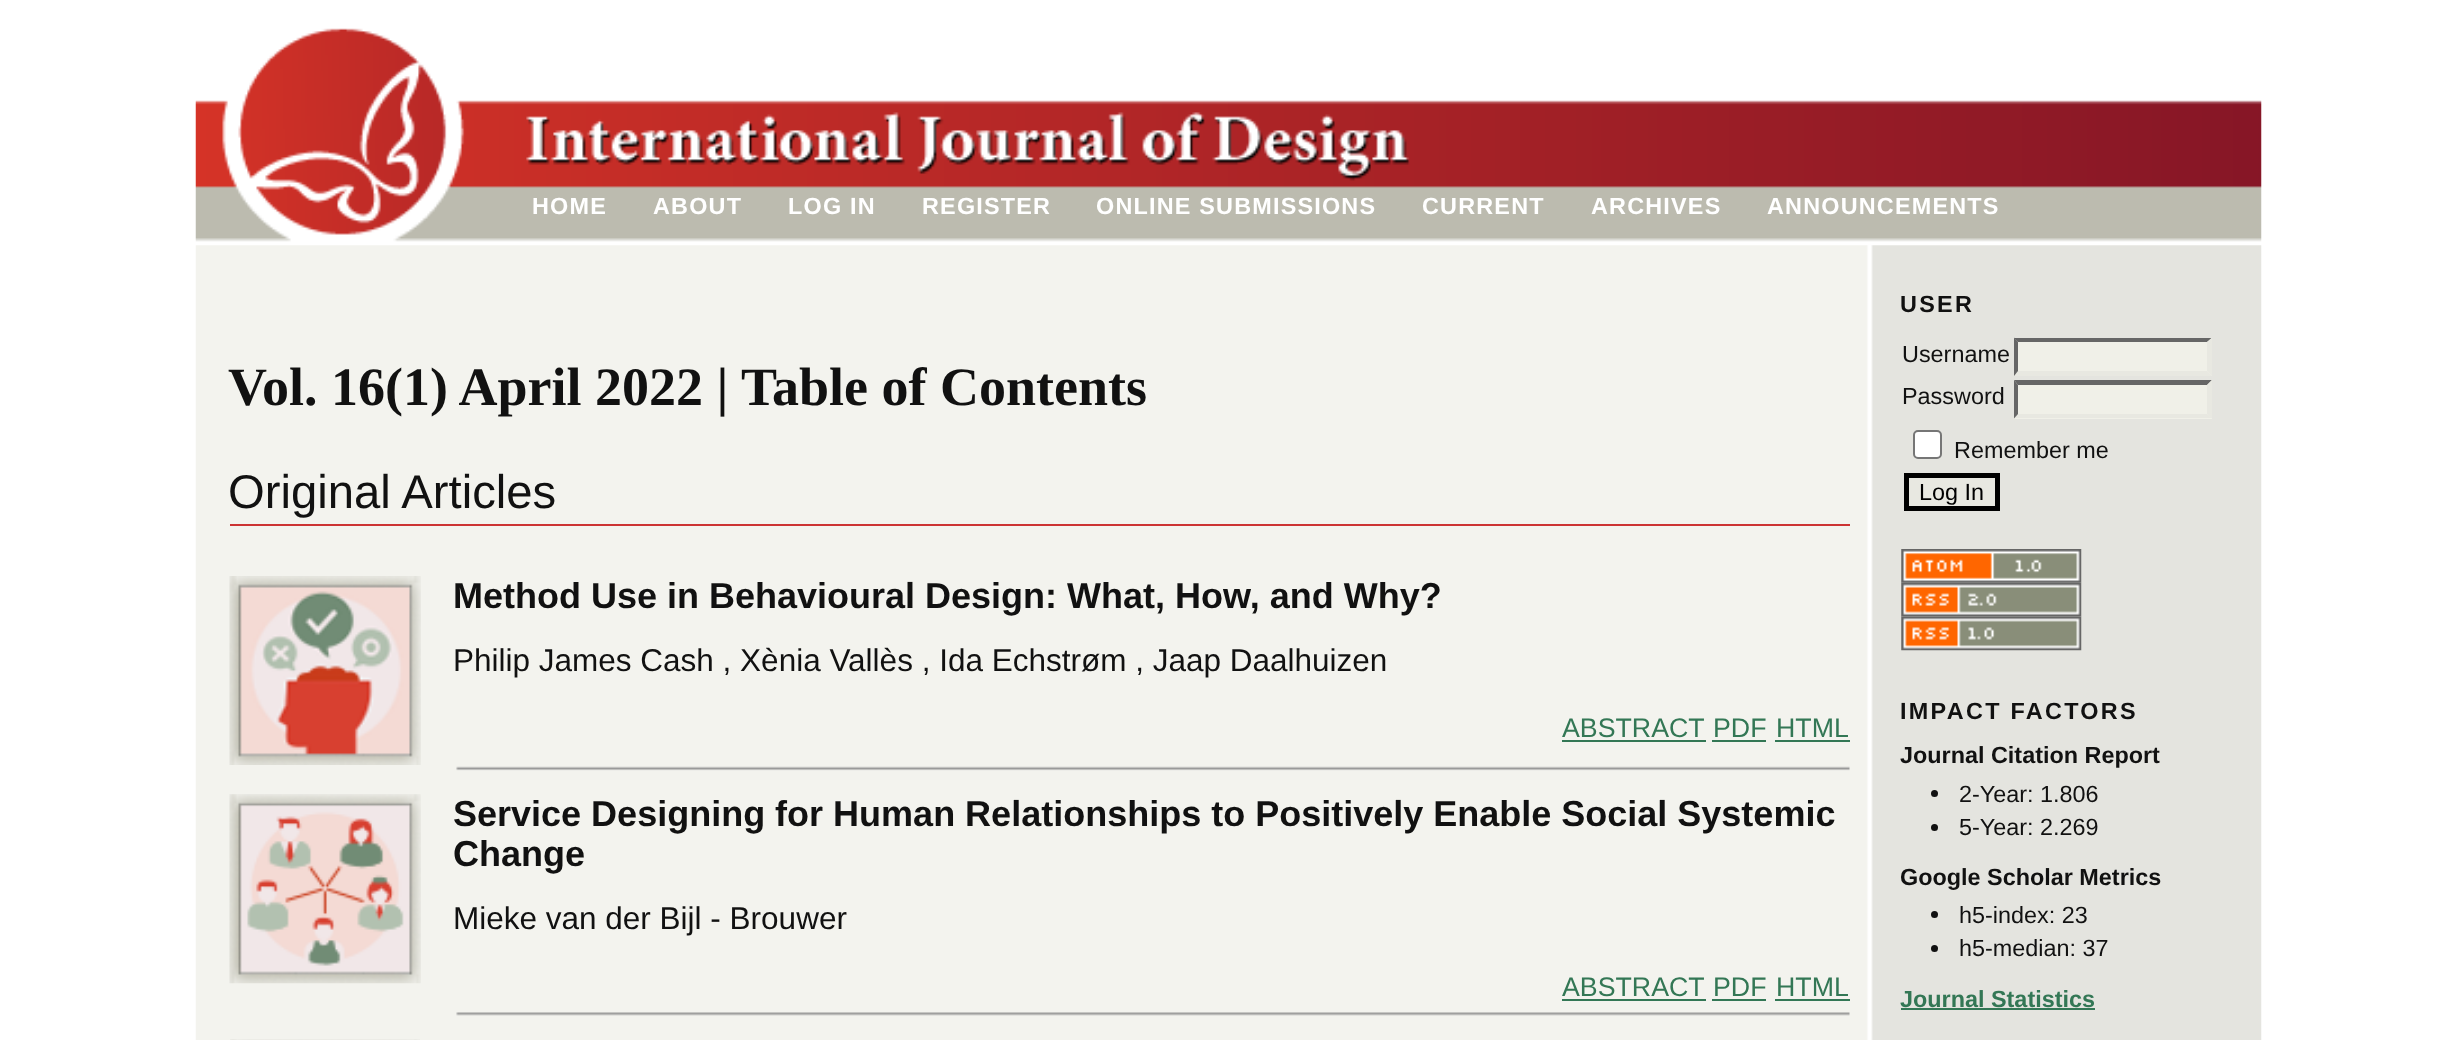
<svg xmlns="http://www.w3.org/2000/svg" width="2453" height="1040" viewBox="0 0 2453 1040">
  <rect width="100%" height="100%" fill="#ffffff"/>
  <image x="195" y="28" width="2067" height="214" href="img1.png"/>
  <text x="532" y="214" font-family="Liberation Sans" font-size="23.4" font-weight="bold" letter-spacing="1.2" fill="#ffffff">HOME</text>
  <text x="653" y="214" font-family="Liberation Sans" font-size="23.4" font-weight="bold" letter-spacing="1.2" fill="#ffffff">ABOUT</text>
  <text x="788" y="214" font-family="Liberation Sans" font-size="23.4" font-weight="bold" letter-spacing="1.2" fill="#ffffff">LOG IN</text>
  <text x="922" y="214" font-family="Liberation Sans" font-size="23.4" font-weight="bold" letter-spacing="1.2" fill="#ffffff">REGISTER</text>
  <text x="1096" y="214" font-family="Liberation Sans" font-size="23.4" font-weight="bold" letter-spacing="1.2" fill="#ffffff">ONLINE SUBMISSIONS</text>
  <text x="1422" y="214" font-family="Liberation Sans" font-size="23.4" font-weight="bold" letter-spacing="1.2" fill="#ffffff">CURRENT</text>
  <text x="1591" y="214" font-family="Liberation Sans" font-size="23.4" font-weight="bold" letter-spacing="1.2" fill="#ffffff">ARCHIVES</text>
  <text x="1767" y="214" font-family="Liberation Sans" font-size="23.4" font-weight="bold" letter-spacing="1.2" fill="#ffffff">ANNOUNCEMENTS</text>
  <image x="195" y="245" width="2067" height="795" href="img2.png"/>
  <text x="228" y="405" font-family="Liberation Serif" font-size="54" font-weight="bold" fill="#111111">Vol. 16(1) April 2022 | Table of Contents</text>
  <rect x="230" y="524" width="1620" height="2" fill="#cc3333"/>
  <text x="228" y="508" font-family="Liberation Sans" font-size="47.25" fill="#111111">Original Articles</text>
  <image x="229" y="576" width="192" height="189" href="img3.png"/>
  <text x="453" y="608" font-family="Liberation Sans" font-size="36" font-weight="bold" fill="#111111">Method Use in Behavioural Design: What, How, and Why?</text>
  <text x="453" y="671" font-family="Liberation Sans" font-size="31.5" fill="#111111">Philip James Cash , Xènia Vallès , Ida Echstrøm , Jaap Daalhuizen</text>
  <text x="1562" y="737" font-family="Liberation Sans" font-size="26.75" fill="#337755">ABSTRACT</text>
  <rect x="1562" y="740" width="144" height="2" fill="#337755"/>
  <text x="1713" y="737" font-family="Liberation Sans" font-size="26.75" fill="#337755">PDF</text>
  <rect x="1712" y="740" width="54" height="2" fill="#337755"/>
  <text x="1776" y="737" font-family="Liberation Sans" font-size="26.75" fill="#337755">HTML</text>
  <rect x="1775" y="740" width="75" height="2" fill="#337755"/>
  <image x="456" y="766" width="1394" height="5" href="img4.png"/>
  <image x="229" y="794" width="192" height="190" href="img5.png"/>
  <text x="453" y="826" font-family="Liberation Sans" font-size="36" font-weight="bold" fill="#111111">Service Designing for Human Relationships to Positively Enable Social Systemic</text>
  <text x="453" y="866" font-family="Liberation Sans" font-size="36" font-weight="bold" fill="#111111">Change</text>
  <text x="453" y="929" font-family="Liberation Sans" font-size="31.5" fill="#111111">Mieke van der Bijl - Brouwer</text>
  <text x="1562" y="996" font-family="Liberation Sans" font-size="26.75" fill="#337755">ABSTRACT</text>
  <rect x="1562" y="999" width="144" height="2" fill="#337755"/>
  <text x="1713" y="996" font-family="Liberation Sans" font-size="26.75" fill="#337755">PDF</text>
  <rect x="1712" y="999" width="54" height="2" fill="#337755"/>
  <text x="1776" y="996" font-family="Liberation Sans" font-size="26.75" fill="#337755">HTML</text>
  <rect x="1775" y="999" width="75" height="2" fill="#337755"/>
  <image x="456" y="1012" width="1394" height="4" href="img6.png"/>
  <image x="230" y="1039" width="190" height="1" href="img7.png"/>
  <text x="1900" y="312" font-family="Liberation Sans" font-size="23.4" font-weight="bold" letter-spacing="2.3" fill="#111111">USER</text>
  <text x="1902" y="362" font-family="Liberation Sans" font-size="23.4" fill="#111111">Username</text>
  <rect x="2014" y="338" width="198" height="38" fill="#f0f0e8"/>
  <path d="M2014 338H2212L2207 342H2018Z" fill="#666666"/>
  <path d="M2212 337.5V376L2207 371V342Z" fill="#e8e8e1"/>
  <path d="M2212 376H2014L2018 371H2207Z" fill="#e8e8e1"/>
  <path d="M2014 376V337.5L2018 342V371Z" fill="#666666"/>
  <text x="1902" y="404" font-family="Liberation Sans" font-size="23.4" fill="#111111">Password</text>
  <rect x="2014" y="380" width="198" height="39" fill="#f0f0e8"/>
  <path d="M2014 380H2212L2207 385H2018Z" fill="#666666"/>
  <path d="M2212 380V418.5L2207 414V385Z" fill="#e8e8e1"/>
  <path d="M2212 418H2014L2018 414H2207Z" fill="#e8e8e1"/>
  <path d="M2014 418.5V380L2018 385V414Z" fill="#666666"/>
  <rect x="1914" y="431" width="27" height="27" rx="4" fill="#ffffff" stroke="#767676" stroke-width="2"/>
  <text x="1954" y="458" font-family="Liberation Sans" font-size="23.4" fill="#111111">Remember me</text>
  <rect x="1906.5" y="475.5" width="91" height="33" fill="#e8e8e1" stroke="#000000" stroke-width="5"/>
  <text x="1919" y="500" font-family="Liberation Sans" font-size="23.4" fill="#000000">Log In</text>
  <image x="1901" y="549" width="181" height="34" href="img8.png"/>
  <image x="1901" y="582" width="181" height="35" href="img9.png"/>
  <image x="1901" y="616" width="181" height="35" href="img10.png"/>
  <text x="1900" y="719" font-family="Liberation Sans" font-size="23.4" font-weight="bold" letter-spacing="2.3" fill="#111111">IMPACT FACTORS</text>
  <text x="1900" y="763" font-family="Liberation Sans" font-size="23.4" font-weight="bold" fill="#111111">Journal Citation Report</text>
  <circle cx="1934.5" cy="793.5" r="3.5" fill="#111111"/>
  <text x="1959" y="802" font-family="Liberation Sans" font-size="23.4" fill="#111111">2-Year: 1.806</text>
  <circle cx="1934.5" cy="827.5" r="3.5" fill="#111111"/>
  <text x="1959" y="835" font-family="Liberation Sans" font-size="23.4" fill="#111111">5-Year: 2.269</text>
  <text x="1900" y="885" font-family="Liberation Sans" font-size="23.4" font-weight="bold" fill="#111111">Google Scholar Metrics</text>
  <circle cx="1934.5" cy="914.5" r="3.5" fill="#111111"/>
  <text x="1959" y="923" font-family="Liberation Sans" font-size="23.4" fill="#111111">h5-index: 23</text>
  <circle cx="1934.5" cy="948.5" r="3.5" fill="#111111"/>
  <text x="1959" y="956" font-family="Liberation Sans" font-size="23.4" fill="#111111">h5-median: 37</text>
  <text x="1900" y="1007" font-family="Liberation Sans" font-size="23.4" font-weight="bold" fill="#337755">Journal Statistics</text>
  <rect x="1901" y="1008" width="194" height="2" fill="#337755"/>
</svg>
